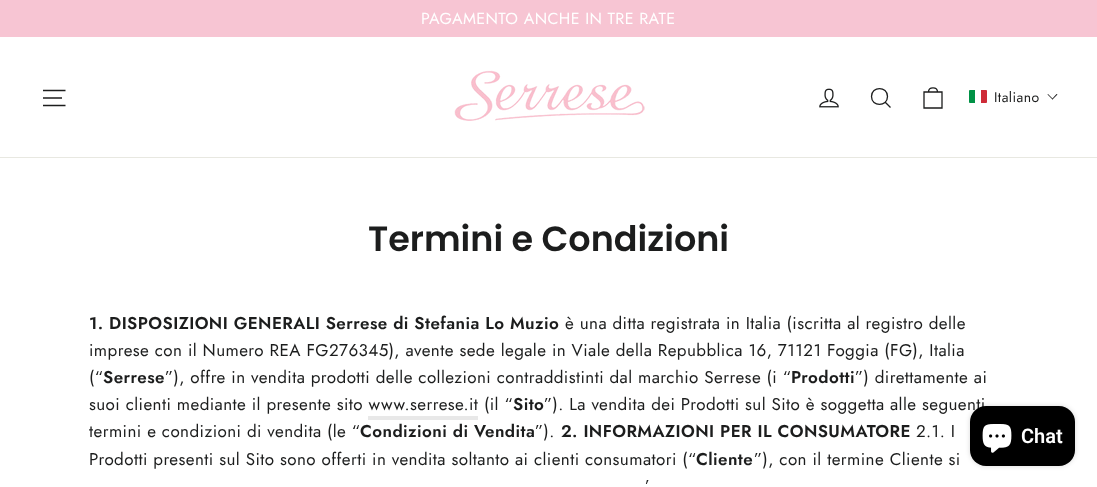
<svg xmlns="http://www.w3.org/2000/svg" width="1097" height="487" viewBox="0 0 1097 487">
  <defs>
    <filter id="blur1" x="-50%" y="-200%" width="200%" height="500%"><feGaussianBlur stdDeviation="2.5"/></filter>
  </defs>
  <rect width="100%" height="100%" fill="#ffffff"/>
  <rect x="0" y="0" width="1097" height="37" fill="#f7c5d3"/>
  <text x="421" y="24" font-family="Jost" font-size="16" letter-spacing="0.42" fill="#ffffff">PAGAMENTO ANCHE IN TRE RATE</text>
  <rect x="0" y="157" width="1097" height="1" fill="#e8e8e1"/>
  <path d="M43 90.5H65.5M43 98H62M43 105.5H65.5" fill="none" stroke="#1c1d1d" stroke-width="1.3"/>
  <image x="454" y="70" width="191" height="51" href="img1.png"/>
  <image x="819" y="88" width="20" height="20" href="img2.png"/>
  <path d="M887.5 96.5C887.5 107 871.5 107 871.5 96.5C871.5 86 887.5 86 887.5 96.5ZM890.5 107.5L885.5 102.5" fill="none" stroke="#1c1d1d" stroke-width="1.3"/>
  <path d="M924 92H942V108H924ZM928.5 92C928.5 86.5 937.5 86.5 937.5 92" fill="none" stroke="#1c1d1d" stroke-width="1.3"/>
  <path d="M970 90H975V103H970C969.5 103 969 102.5 969 102V91C969 90.5 969.5 90 970 90Z" fill="#009246"/>
  <path d="M981 90H986C986.5 90 987 90.5 987 91V102C987 102.5 986.5 103 986 103H981Z" fill="#ce2b37"/>
  <text x="994" y="102" font-family="Jost" font-size="14" letter-spacing="0.42" fill="#1c1d1d">Italiano</text>
  <path d="M1056.5 94L1057.5 94.5L1052.5 99.5L1052 99Z" fill="#1a1a1a"/>
  <path d="M1048 94L1053 99L1052.5 99.5L1047.5 94.5Z" fill="#1a1a1a"/>
  <text x="368" y="251" font-family="Poppins" font-size="35" font-weight="600" fill="#1c1d1d">Termini e Condizioni</text>
  <text x="89" y="329" font-family="Jost" font-size="17" font-weight="600" letter-spacing="0.42" fill="#1c1d1d">1. DISPOSIZIONI GENERALI Serrese di Stefania Lo Muzio</text>
  <text x="565" y="329" font-family="Jost" font-size="17" letter-spacing="0.42" fill="#1c1d1d">è una ditta registrata in Italia (iscritta al registro delle</text>
  <text x="89" y="356" font-family="Jost" font-size="17" letter-spacing="0.42" fill="#1c1d1d">imprese con il Numero REA FG276345), avente sede legale in Viale della Repubblica 16, 71121 Foggia (FG), Italia</text>
  <text x="89" y="383" font-family="Jost" font-size="17" letter-spacing="0.42" fill="#1c1d1d">(“</text>
  <text x="103" y="383" font-family="Jost" font-size="17" font-weight="600" letter-spacing="0.42" fill="#1c1d1d">Serrese</text>
  <text x="165" y="383" font-family="Jost" font-size="17" letter-spacing="0.42" fill="#1c1d1d">”), offre in vendita prodotti delle collezioni contraddistinti dal marchio Serrese (i “</text>
  <text x="791" y="383" font-family="Jost" font-size="17" font-weight="600" letter-spacing="0.42" fill="#1c1d1d">Prodotti</text>
  <text x="855" y="383" font-family="Jost" font-size="17" letter-spacing="0.42" fill="#1c1d1d">”) direttamente ai</text>
  <text x="89" y="410" font-family="Jost" font-size="17" letter-spacing="0.42" fill="#1c1d1d">suoi clienti mediante il presente sito www.serrese.it</text>
  <text x="484" y="410" font-family="Jost" font-size="17" letter-spacing="0.42" fill="#1c1d1d">(il “</text>
  <text x="513" y="410" font-family="Jost" font-size="17" font-weight="600" letter-spacing="0.42" fill="#1c1d1d">Sito</text>
  <text x="544" y="410" font-family="Jost" font-size="17" letter-spacing="0.42" fill="#1c1d1d">”). La vendita dei Prodotti sul Sito è soggetta alle seguenti</text>
  <rect x="368" y="416" width="110" height="4" fill="#e8e8e8"/>
  <text x="89" y="437" font-family="Jost" font-size="17" letter-spacing="0.42" fill="#1c1d1d">termini e condizioni di vendita (le “</text>
  <text x="360" y="437" font-family="Jost" font-size="17" font-weight="600" letter-spacing="0.42" fill="#1c1d1d">Condizioni di Vendita</text>
  <text x="535" y="437" font-family="Jost" font-size="17" letter-spacing="0.42" fill="#1c1d1d">”).</text>
  <text x="561" y="437" font-family="Jost" font-size="17" font-weight="600" letter-spacing="0.42" fill="#1c1d1d">2. INFORMAZIONI PER IL CONSUMATORE</text>
  <text x="916" y="437" font-family="Jost" font-size="17" letter-spacing="0.42" fill="#1c1d1d">2.1. I</text>
  <text x="89" y="465" font-family="Jost" font-size="17" letter-spacing="0.42" fill="#1c1d1d">Prodotti presenti sul Sito sono offerti in vendita soltanto ai clienti consumatori (“</text>
  <text x="696" y="465" font-family="Jost" font-size="17" font-weight="600" letter-spacing="0.42" fill="#1c1d1d">Cliente</text>
  <text x="754" y="465" font-family="Jost" font-size="17" letter-spacing="0.42" fill="#1c1d1d">”), con il termine Cliente si</text>
  <text x="645" y="492" font-family="Jost" font-size="17" letter-spacing="0.42" fill="#1c1d1d">’</text>
  <rect x="970" y="406" width="105" height="60" rx="16" fill="#000000" fill-opacity="0.15" filter="url(#blur1)"/>
  <rect x="970" y="406" width="105" height="60" rx="16" fill="#000000"/>
  <image x="982" y="424" width="30" height="29" href="img3.png"/>
  <text x="1021" y="443" font-family="Roboto" font-size="20" font-weight="600" fill="#ffffff">Chat</text>
</svg>
